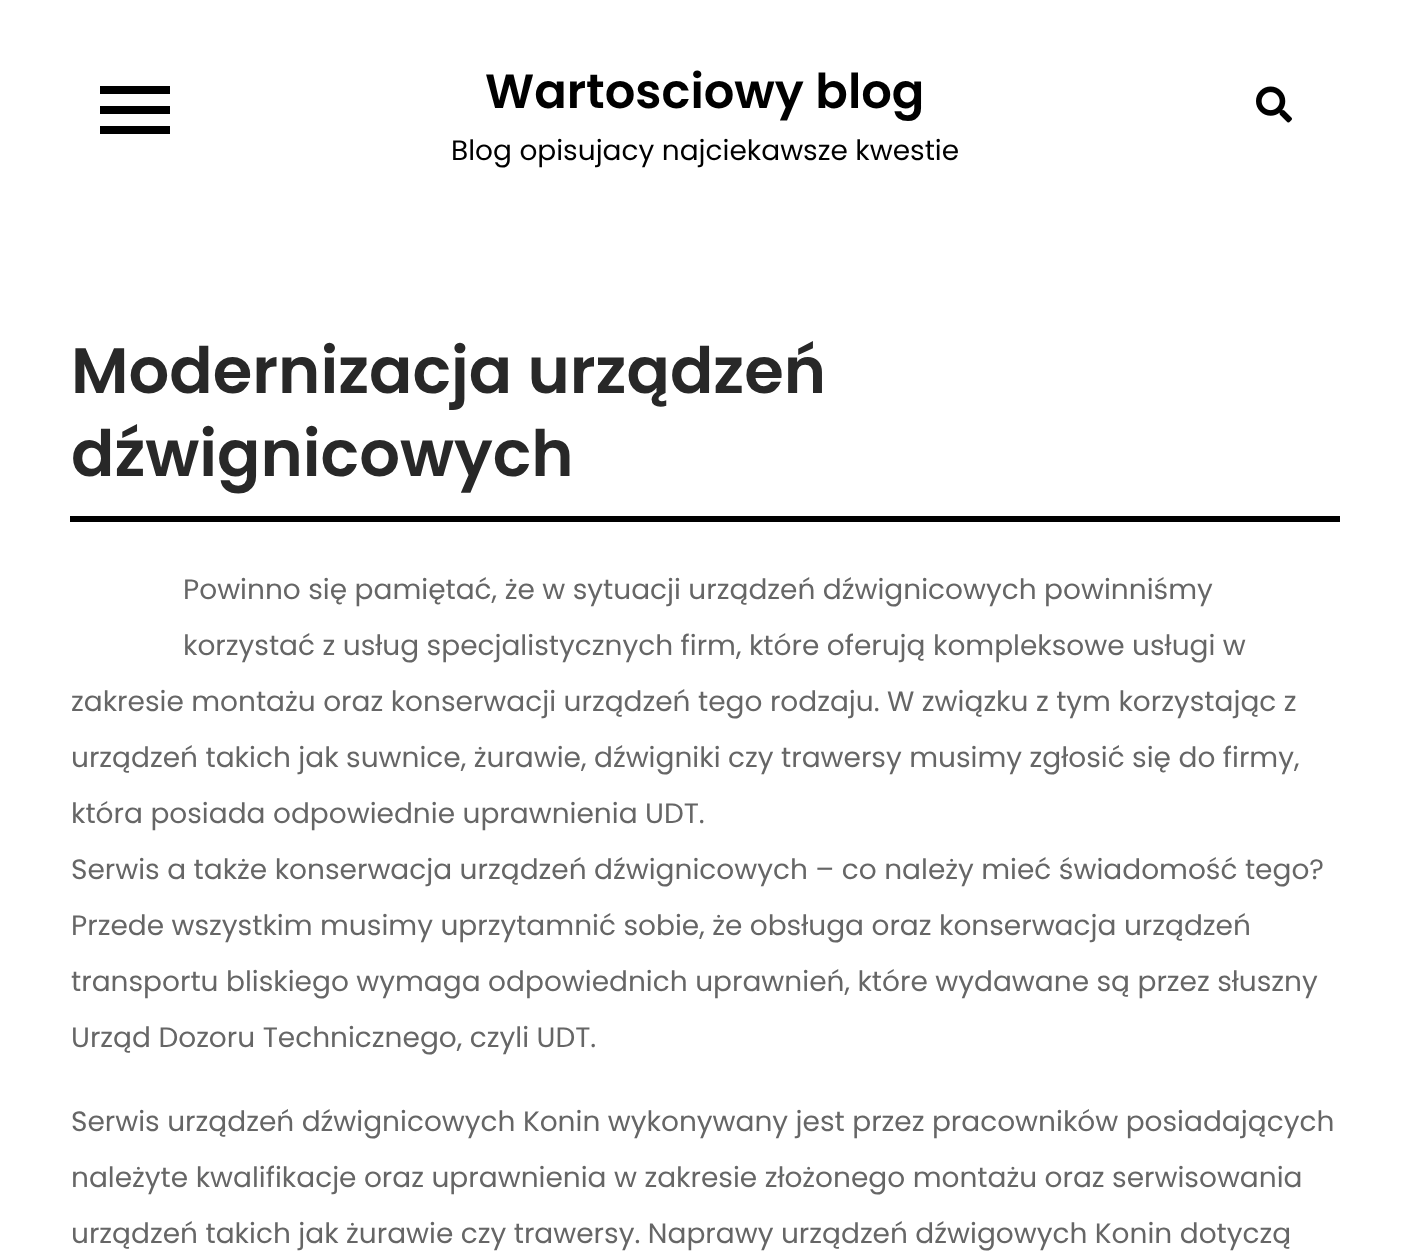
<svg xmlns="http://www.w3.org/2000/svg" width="1410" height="1252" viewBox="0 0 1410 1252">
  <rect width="100%" height="100%" fill="#ffffff"/>
  <rect x="100" y="106" width="70" height="8" fill="#000000"/>
  <rect x="100" y="86" width="70" height="8" fill="#000000"/>
  <rect x="100" y="126" width="70" height="8" fill="#000000"/>
  <text x="485" y="108" font-family="Poppins" font-size="48" font-weight="600" fill="#000000">Wartosciowy blog</text>
  <text x="451" y="160" font-family="Poppins" font-size="28" fill="#000000">Blog opisujacy najciekawsze kwestie</text>
  <image x="1256" y="86" width="36" height="37" href="img1.png"/>
  <rect x="70" y="516" width="1270" height="6" fill="#000000"/>
  <text x="71" y="393" font-family="Poppins" font-size="64" font-weight="600" fill="#282828">Modernizacja urządzeń</text>
  <text x="71" y="476" font-family="Poppins" font-size="64" font-weight="600" fill="#282828">dźwignicowych</text>
  <text x="183" y="599" font-family="Poppins" font-size="28" fill="#666666">Powinno się pamiętać, że w sytuacji urządzeń dźwignicowych powinniśmy</text>
  <text x="183" y="655" font-family="Poppins" font-size="28" fill="#666666">korzystać z usług specjalistycznych firm, które oferują kompleksowe usługi w</text>
  <text x="71" y="711" font-family="Poppins" font-size="28" fill="#666666">zakresie montażu oraz konserwacji urządzeń tego rodzaju. W związku z tym korzystając z</text>
  <text x="71" y="767" font-family="Poppins" font-size="28" fill="#666666">urządzeń takich jak suwnice, żurawie, dźwigniki czy trawersy musimy zgłosić się do firmy,</text>
  <text x="71" y="823" font-family="Poppins" font-size="28" fill="#666666">która posiada odpowiednie uprawnienia UDT.</text>
  <text x="71" y="879" font-family="Poppins" font-size="28" fill="#666666">Serwis a także konserwacja urządzeń dźwignicowych – co należy mieć świadomość tego?</text>
  <text x="71" y="935" font-family="Poppins" font-size="28" fill="#666666">Przede wszystkim musimy uprzytamnić sobie, że obsługa oraz konserwacja urządzeń</text>
  <text x="71" y="991" font-family="Poppins" font-size="28" fill="#666666">transportu bliskiego wymaga odpowiednich uprawnień, które wydawane są przez słuszny</text>
  <text x="71" y="1047" font-family="Poppins" font-size="28" fill="#666666">Urząd Dozoru Technicznego, czyli UDT.</text>
  <text x="71" y="1131" font-family="Poppins" font-size="28" fill="#666666">Serwis urządzeń dźwignicowych Konin wykonywany jest przez pracowników posiadających</text>
  <text x="71" y="1187" font-family="Poppins" font-size="28" fill="#666666">należyte kwalifikacje oraz uprawnienia w zakresie złożonego montażu oraz serwisowania</text>
  <text x="71" y="1243" font-family="Poppins" font-size="28" fill="#666666">urządzeń takich jak żurawie czy trawersy. Naprawy urządzeń dźwigowych Konin dotyczą</text>
</svg>
